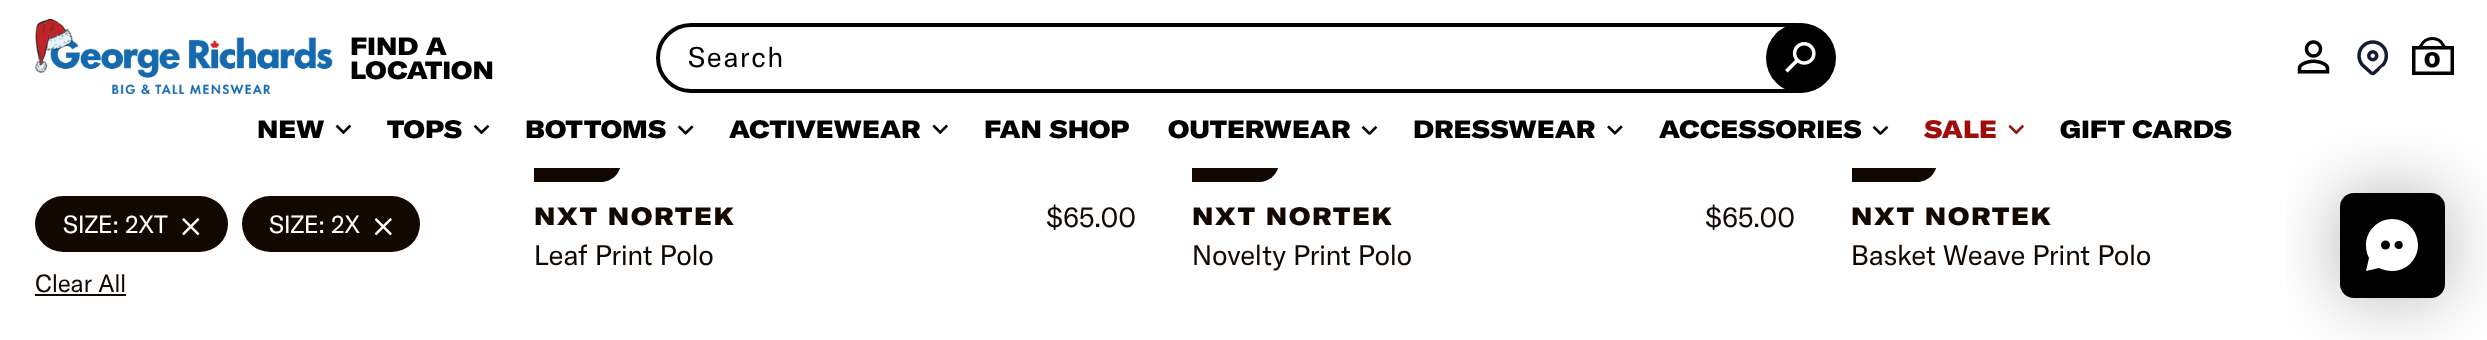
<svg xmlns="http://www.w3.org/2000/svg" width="2487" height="340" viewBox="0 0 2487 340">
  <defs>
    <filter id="blur1" x="-50%" y="-200%" width="200%" height="500%"><feGaussianBlur stdDeviation="35"/></filter>
  </defs>
  <rect width="100%" height="100%" fill="#ffffff"/>
  <image x="35" y="19" width="298" height="75" href="img1.png"/>
  <text x="350" y="55" font-family="GT America" font-size="24.5" font-weight="900" fill="#000000">FIND A</text>
  <text x="350" y="79" font-family="GT America" font-size="24.5" font-weight="900" fill="#000000">LOCATION</text>
  <rect x="658" y="25" width="1172" height="66" rx="33" fill="none" stroke="#000000" stroke-width="4"/>
  <text x="688" y="67" font-family="GT America" font-size="28" letter-spacing="1.75" fill="#000000">Search</text>
  <circle cx="1801" cy="58" r="35" fill="#000000"/>
  <image x="1785" y="42" width="31" height="31" href="img2.png"/>
  <image x="2297" y="40" width="33" height="34" href="img3.png"/>
  <image x="2357" y="40" width="32" height="36" href="img4.png"/>
  <rect x="2413.75" y="47.75" width="38.5" height="25.5" fill="none" stroke="#000000" stroke-width="3.5"/>
  <path d="M2421 45.5C2426 36.5 2438.5 36 2443.5 45.5" fill="none" stroke="#000000" stroke-width="3.1" stroke-linecap="square"/>
  <text x="2424" y="67" font-family="GT America" font-size="21" font-weight="900" fill="#000000">0</text>
  <path d="M534 142H601C612 142 621 151 621 162C621 173 612 182 601 182H534Z" fill="#120800"/>
  <path d="M1192 142H1259C1270 142 1279 151 1279 162C1279 173 1270 182 1259 182H1192Z" fill="#120800"/>
  <path d="M1852 142H1917C1928 142 1937 151 1937 162C1937 173 1928 182 1917 182H1852Z" fill="#120800"/>
  <rect x="534" y="142" width="1403" height="26" fill="#ffffff"/>
  <text x="257" y="138" font-family="GT America" font-size="24.5" font-weight="900" fill="#000000">NEW</text>
  <image x="335" y="124" width="17" height="11" href="img5.png"/>
  <text x="387" y="138" font-family="GT America" font-size="24.5" font-weight="900" fill="#000000">TOPS</text>
  <image x="473" y="124" width="17" height="11" href="img6.png"/>
  <text x="525" y="138" font-family="GT America" font-size="24.5" font-weight="900" fill="#000000">BOTTOMS</text>
  <image x="677" y="125" width="17" height="10" href="img7.png"/>
  <text x="729" y="138" font-family="GT America" font-size="24.5" font-weight="900" fill="#000000">ACTIVEWEAR</text>
  <image x="932" y="124" width="16" height="11" href="img8.png"/>
  <text x="984" y="138" font-family="GT America" font-size="24.5" font-weight="900" fill="#000000">FAN SHOP</text>
  <text x="1168" y="138" font-family="GT America" font-size="24.5" font-weight="900" fill="#000000">OUTERWEAR</text>
  <image x="1361" y="125" width="17" height="10" href="img9.png"/>
  <text x="1413" y="138" font-family="GT America" font-size="24.5" font-weight="900" fill="#000000">DRESSWEAR</text>
  <image x="1607" y="125" width="16" height="10" href="img10.png"/>
  <text x="1659" y="138" font-family="GT America" font-size="24.5" font-weight="900" fill="#000000">ACCESSORIES</text>
  <image x="1872" y="125" width="17" height="10" href="img9.png"/>
  <text x="1924" y="138" font-family="GT America" font-size="24.5" font-weight="900" fill="#9d0d09">SALE</text>
  <image x="2008" y="124" width="17" height="11" href="img11.png"/>
  <text x="2060" y="138" font-family="GT America" font-size="24.5" font-weight="900" fill="#000000">GIFT CARDS</text>
  <rect x="35" y="196" width="193" height="56" rx="28" fill="#120800"/>
  <text x="63" y="233" font-family="GT America" font-size="24.5" fill="#ffffff">SIZE: 2XT</text>
  <image x="182" y="218" width="18" height="18" href="img12.png"/>
  <rect x="242" y="196" width="178" height="56" rx="28" fill="#120800"/>
  <text x="269" y="233" font-family="GT America" font-size="24.5" fill="#ffffff">SIZE: 2X</text>
  <image x="375" y="218" width="17" height="18" href="img13.png"/>
  <text x="35" y="292" font-family="GT America" font-size="24.5" fill="#120800">Clear All</text>
  <rect x="35" y="294" width="91" height="2" fill="#120800"/>
  <text x="534" y="225" font-family="GT America" font-size="24.5" font-weight="900" letter-spacing="1.75" fill="#120800">NXT NORTEK</text>
  <text x="1046" y="227" font-family="GT America" font-size="28" fill="#120800">$65.00</text>
  <text x="534" y="265" font-family="GT America" font-size="28" fill="#120800">Leaf Print Polo</text>
  <text x="1192" y="225" font-family="GT America" font-size="24.5" font-weight="900" letter-spacing="1.75" fill="#120800">NXT NORTEK</text>
  <text x="1705" y="227" font-family="GT America" font-size="28" fill="#120800">$65.00</text>
  <text x="1192" y="265" font-family="GT America" font-size="28" fill="#120800">Novelty Print Polo</text>
  <text x="1851" y="225" font-family="GT America" font-size="24.5" font-weight="900" letter-spacing="1.75" fill="#120800">NXT NORTEK</text>
  <text x="1851" y="265" font-family="GT America" font-size="28" fill="#120800">Basket Weave Print Polo</text>
  <rect x="2340" y="193" width="105" height="105" rx="14" fill="#000000" fill-opacity="0.3" filter="url(#blur1)"/>
  <rect x="2340" y="193" width="105" height="105" rx="14" fill="#000000"/>
  <path d="M2392 271C2407 271 2418 259 2418 245C2418 231 2407 219 2392 219C2378 219 2366 231 2366 245C2366 250 2367 254 2369 258L2366 271L2379 268C2383 270 2388 271 2392 271ZM2390 245C2390 251 2381 251 2381 245C2381 239 2390 239 2390 245ZM2399 249C2404 249 2404 241 2399 241C2393 241 2393 249 2399 249Z" fill="#ffffff" fill-rule="evenodd"/>
</svg>
